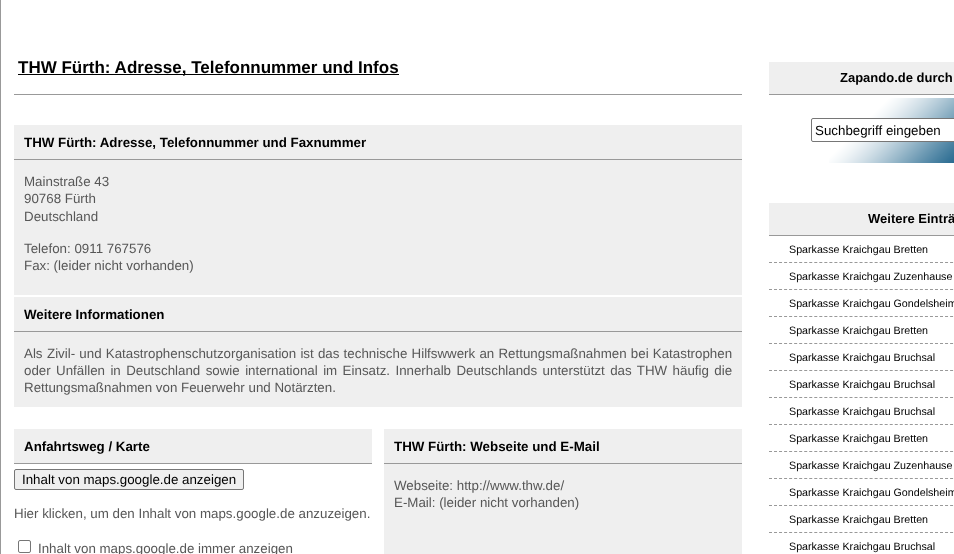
<svg xmlns="http://www.w3.org/2000/svg" width="954" height="554" viewBox="0 0 954 554">
  <rect width="100%" height="100%" fill="#ffffff"/>
  <rect x="0" y="0" width="1" height="554" fill="#999999"/>
  <rect x="18" y="74" width="381" height="1" fill="#000000"/>
  <text x="18" y="73" font-family="Liberation Sans" font-size="17" font-weight="bold" fill="#000000">THW Fürth: Adresse, Telefonnummer und Infos</text>
  <rect x="14" y="94" width="728" height="1" fill="#999999"/>
  <rect x="14" y="159" width="728" height="1" fill="#999999"/>
  <rect x="14" y="125" width="728" height="34" fill="#efefef"/>
  <text x="24" y="147" font-family="Liberation Sans" font-size="13.33" font-weight="bold" fill="#000000">THW Fürth: Adresse, Telefonnummer und Faxnummer</text>
  <rect x="14" y="160" width="728" height="135" fill="#efefef"/>
  <text x="24" y="186" font-family="Liberation Sans" font-size="13.33" fill="#575757">Mainstraße 43</text>
  <text x="24" y="203" font-family="Liberation Sans" font-size="13.33" fill="#575757">90768 Fürth</text>
  <text x="24" y="221" font-family="Liberation Sans" font-size="13.33" fill="#575757">Deutschland</text>
  <text x="24" y="253" font-family="Liberation Sans" font-size="13.33" fill="#575757">Telefon: 0911 767576</text>
  <text x="24" y="270" font-family="Liberation Sans" font-size="13.33" fill="#575757">Fax: (leider nicht vorhanden)</text>
  <rect x="14" y="331" width="728" height="1" fill="#999999"/>
  <rect x="14" y="297" width="728" height="34" fill="#efefef"/>
  <text x="24" y="319" font-family="Liberation Sans" font-size="13.33" font-weight="bold" fill="#000000">Weitere Informationen</text>
  <rect x="14" y="332" width="728" height="75" fill="#efefef"/>
  <text x="24" y="358" font-family="Liberation Sans" font-size="13.33" fill="#575757">Als</text>
  <text x="47" y="358" word-spacing="0.5" font-family="Liberation Sans" font-size="13.33" fill="#575757">Zivil- und Katastrophenschutzorganisation ist das technische Hilfswwerk an Rettungsmaßnahmen bei Katastrophen</text>
  <text x="24" y="375" word-spacing="1.7" font-family="Liberation Sans" font-size="13.33" fill="#575757">oder Unfällen in Deutschland sowie international im Einsatz. Innerhalb Deutschlands unterstützt das THW häufig die</text>
  <text x="24" y="392" font-family="Liberation Sans" font-size="13.33" fill="#575757">Rettungsmaßnahmen von Feuerwehr und Notärzten.</text>
  <rect x="14" y="463" width="358" height="1" fill="#999999"/>
  <rect x="14" y="429" width="358" height="34" fill="#efefef"/>
  <text x="24" y="451" font-family="Liberation Sans" font-size="13.33" font-weight="bold" fill="#000000">Anfahrtsweg / Karte</text>
  <rect x="14.5" y="469.5" width="229" height="20" rx="1.5" fill="#efefef" stroke="#767676"/>
  <text x="22" y="484" font-family="Liberation Sans" font-size="13.33" fill="#000000">Inhalt von maps.google.de anzeigen</text>
  <text x="14" y="518" font-family="Liberation Sans" font-size="13.33" fill="#575757">Hier klicken, um den Inhalt von maps.google.de anzuzeigen.</text>
  <rect x="18.5" y="540.5" width="12" height="12" rx="1.5" fill="none" stroke="#767676"/>
  <text x="38" y="553" font-family="Liberation Sans" font-size="13.33" fill="#575757">Inhalt von maps.google.de immer anzeigen</text>
  <rect x="384" y="463" width="358" height="1" fill="#999999"/>
  <rect x="384" y="429" width="358" height="34" fill="#efefef"/>
  <text x="394" y="451" font-family="Liberation Sans" font-size="13.33" font-weight="bold" fill="#000000">THW Fürth: Webseite und E-Mail</text>
  <rect x="384" y="464" width="358" height="90" fill="#efefef"/>
  <text x="394" y="490" font-family="Liberation Sans" font-size="13.33" fill="#575757">Webseite: http://www.thw.de/</text>
  <text x="394" y="507" font-family="Liberation Sans" font-size="13.33" fill="#575757">E-Mail: (leider nicht vorhanden)</text>
  <rect x="769" y="62" width="185" height="32" fill="#efefef"/>
  <rect x="769" y="94" width="185" height="1" fill="#999999"/>
  <text x="840" y="82" font-family="Liberation Sans" font-size="13" font-weight="bold" fill="#000000">Zapando.de durch</text>
  <image x="829" y="98" width="125" height="65" href="img1.png"/>
  <rect x="811.5" y="118.5" width="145" height="23" rx="1.5" fill="#ffffff" stroke="#767676"/>
  <text x="815" y="135" font-family="Liberation Sans" font-size="13.33" fill="#000000">Suchbegriff eingeben</text>
  <rect x="769" y="203" width="185" height="32" fill="#efefef"/>
  <rect x="769" y="235" width="185" height="1" fill="#999999"/>
  <text x="868" y="223" font-family="Liberation Sans" font-size="13" font-weight="bold" fill="#000000">Weitere Einträ</text>
  <path d="M769 262.5H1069" fill="none" stroke="#999999" stroke-dasharray="3 2.03"/>
  <text x="789" y="253" font-family="Liberation Sans" font-size="10.7" fill="#000000">Sparkasse Kraichgau Bretten</text>
  <path d="M769 289.5H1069" fill="none" stroke="#999999" stroke-dasharray="3 2.03"/>
  <text x="789" y="280" font-family="Liberation Sans" font-size="10.7" fill="#000000">Sparkasse Kraichgau Zuzenhause</text>
  <path d="M769 316.5H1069" fill="none" stroke="#999999" stroke-dasharray="3 2.03"/>
  <text x="789" y="307" font-family="Liberation Sans" font-size="10.7" fill="#000000">Sparkasse Kraichgau Gondelsheim</text>
  <path d="M769 343.5H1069" fill="none" stroke="#999999" stroke-dasharray="3 2.03"/>
  <text x="789" y="334" font-family="Liberation Sans" font-size="10.7" fill="#000000">Sparkasse Kraichgau Bretten</text>
  <path d="M769 370.5H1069" fill="none" stroke="#999999" stroke-dasharray="3 2.03"/>
  <text x="789" y="361" font-family="Liberation Sans" font-size="10.7" fill="#000000">Sparkasse Kraichgau Bruchsal</text>
  <path d="M769 397.5H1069" fill="none" stroke="#999999" stroke-dasharray="3 2.03"/>
  <text x="789" y="388" font-family="Liberation Sans" font-size="10.7" fill="#000000">Sparkasse Kraichgau Bruchsal</text>
  <path d="M769 424.5H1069" fill="none" stroke="#999999" stroke-dasharray="3 2.03"/>
  <text x="789" y="415" font-family="Liberation Sans" font-size="10.7" fill="#000000">Sparkasse Kraichgau Bruchsal</text>
  <path d="M769 451.5H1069" fill="none" stroke="#999999" stroke-dasharray="3 2.03"/>
  <text x="789" y="442" font-family="Liberation Sans" font-size="10.7" fill="#000000">Sparkasse Kraichgau Bretten</text>
  <path d="M769 478.5H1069" fill="none" stroke="#999999" stroke-dasharray="3 2.03"/>
  <text x="789" y="469" font-family="Liberation Sans" font-size="10.7" fill="#000000">Sparkasse Kraichgau Zuzenhause</text>
  <path d="M769 505.5H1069" fill="none" stroke="#999999" stroke-dasharray="3 2.03"/>
  <text x="789" y="496" font-family="Liberation Sans" font-size="10.7" fill="#000000">Sparkasse Kraichgau Gondelsheim</text>
  <path d="M769 532.5H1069" fill="none" stroke="#999999" stroke-dasharray="3 2.03"/>
  <text x="789" y="523" font-family="Liberation Sans" font-size="10.7" fill="#000000">Sparkasse Kraichgau Bretten</text>
  <text x="789" y="550" font-family="Liberation Sans" font-size="10.7" fill="#000000">Sparkasse Kraichgau Bruchsal</text>
</svg>
